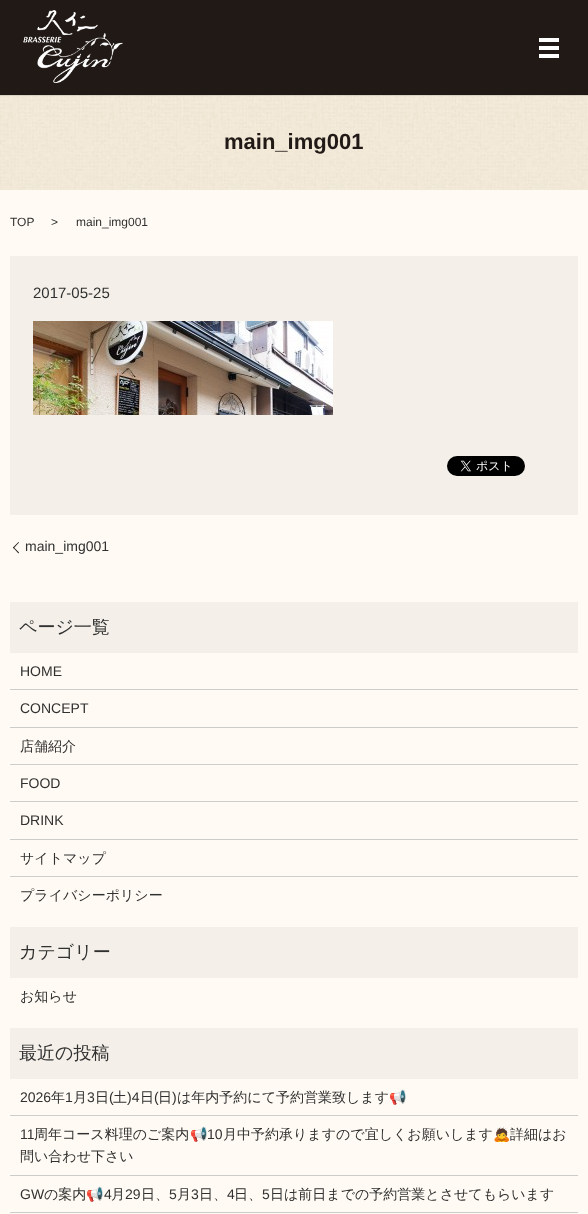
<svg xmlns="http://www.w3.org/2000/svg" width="588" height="1214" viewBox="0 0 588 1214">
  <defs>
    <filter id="blur1" x="-50%" y="-200%" width="200%" height="500%"><feGaussianBlur stdDeviation="0.5"/></filter>
  </defs>
  <rect width="100%" height="100%" fill="#fffbf4"/>
  <image x="0" y="95" width="588" height="95" href="img2.png"/>
  <rect x="0" y="1" width="588" height="95" fill="#000000" fill-opacity="0.1" filter="url(#blur1)"/>
  <rect x="0" y="0" width="588" height="95" fill="#201916"/>
  <image x="23" y="10" width="100" height="73" href="img1.png"/>
  <rect x="539" y="38" width="20" height="4" fill="#ffffff"/>
  <rect x="539" y="46" width="20" height="4" fill="#ffffff"/>
  <rect x="539" y="54" width="20" height="4" fill="#ffffff"/>
  <text x="224" y="149" font-family="Liberation Sans" font-size="22" font-weight="bold" fill="#201916">main_img001</text>
  <text x="10" y="226" font-family="Liberation Sans" font-size="12" fill="#303030">TOP</text>
  <text x="51" y="226" font-family="Liberation Sans" font-size="12" fill="#303030">&gt;</text>
  <text x="76" y="226" font-family="Liberation Sans" font-size="12" fill="#303030">main_img001</text>
  <rect x="10" y="256" width="568" height="259" fill="#f4f0e9"/>
  <text x="33" y="298" font-family="Liberation Sans" font-size="15" fill="#303030">2017-05-25</text>
  <image x="33" y="321" width="300" height="94" href="img3.png"/>
  <image x="447" y="456" width="78" height="20" href="img4.png"/>
  <path d="M13 547.5L18.5 542L19 542.5L13.5 548.5Z" fill="#201916"/>
  <text x="25" y="551" font-family="Liberation Sans" font-size="14" fill="#303030">main_img001</text>
  <path d="M18.5 553.5L13 547.5L13.5 547L19 552.5Z" fill="#201916"/>
  <rect x="10" y="602" width="568" height="51" fill="#f4f0e9"/>
  <text x="19" y="633" font-family="WenQuanYi Zen Hei" font-size="18" font-weight="500" fill="#303030">ページ一覧</text>
  <rect x="10" y="689" width="568" height="1" fill="#cccccc"/>
  <text x="20" y="676" font-family="Liberation Sans" font-size="14" fill="#303030">HOME</text>
  <rect x="10" y="727" width="568" height="1" fill="#cccccc"/>
  <text x="20" y="713" font-family="Liberation Sans" font-size="14" fill="#303030">CONCEPT</text>
  <rect x="10" y="764" width="568" height="1" fill="#cccccc"/>
  <text x="20" y="751" font-family="WenQuanYi Zen Hei" font-size="14" font-weight="500" fill="#303030">店舗紹介</text>
  <rect x="10" y="801" width="568" height="1" fill="#cccccc"/>
  <text x="20" y="788" font-family="Liberation Sans" font-size="14" fill="#303030">FOOD</text>
  <rect x="10" y="839" width="568" height="1" fill="#cccccc"/>
  <text x="20" y="825" font-family="Liberation Sans" font-size="14" fill="#303030">DRINK</text>
  <rect x="10" y="876" width="568" height="1" fill="#cccccc"/>
  <text x="20" y="863" font-family="WenQuanYi Zen Hei" font-size="14" font-weight="500" fill="#303030">サイトマップ</text>
  <text x="20" y="900" font-family="WenQuanYi Zen Hei" font-size="14" font-weight="500" fill="#303030">プライバシーポリシー</text>
  <rect x="10" y="927" width="568" height="51" fill="#f4f0e9"/>
  <text x="19" y="958" font-family="WenQuanYi Zen Hei" font-size="18" font-weight="500" fill="#303030">カテゴリー</text>
  <text x="20" y="1001" font-family="WenQuanYi Zen Hei" font-size="14" font-weight="500" fill="#303030">お知らせ</text>
  <rect x="10" y="1028" width="568" height="51" fill="#f4f0e9"/>
  <text x="19" y="1059" font-family="WenQuanYi Zen Hei" font-size="18" font-weight="500" fill="#303030">最近の投稿</text>
  <rect x="10" y="1115" width="568" height="1" fill="#cccccc"/>
  <text x="20" y="1102" font-family="Liberation Sans" font-size="14" fill="#303030">2026</text>
  <text x="51" y="1102" font-family="WenQuanYi Zen Hei" font-size="14" font-weight="500" fill="#303030">年</text>
  <text x="65" y="1102" font-family="Liberation Sans" font-size="14" fill="#303030">1</text>
  <text x="73" y="1102" font-family="WenQuanYi Zen Hei" font-size="14" font-weight="500" fill="#303030">月</text>
  <text x="87" y="1102" font-family="Liberation Sans" font-size="14" fill="#303030">3</text>
  <text x="95" y="1102" font-family="WenQuanYi Zen Hei" font-size="14" font-weight="500" fill="#303030">日</text>
  <text x="109" y="1102" font-family="Liberation Sans" font-size="14" fill="#303030">(</text>
  <text x="113" y="1102" font-family="WenQuanYi Zen Hei" font-size="14" font-weight="500" fill="#303030">土</text>
  <text x="127" y="1102" font-family="Liberation Sans" font-size="14" fill="#303030">)4</text>
  <text x="140" y="1102" font-family="WenQuanYi Zen Hei" font-size="14" font-weight="500" fill="#303030">日</text>
  <text x="154" y="1102" font-family="Liberation Sans" font-size="14" fill="#303030">(</text>
  <text x="158" y="1102" font-family="WenQuanYi Zen Hei" font-size="14" font-weight="500" fill="#303030">日</text>
  <text x="172" y="1102" font-family="Liberation Sans" font-size="14" fill="#303030">)</text>
  <text x="177" y="1102" font-family="WenQuanYi Zen Hei" font-size="14" font-weight="500" fill="#303030">は年内予約にて予約営業致します</text>
  <text x="389" y="1102" font-family="Noto Color Emoji" font-size="14" fill="#303030">📢</text>
  <rect x="10" y="1175" width="568" height="1" fill="#cccccc"/>
  <text x="20" y="1139" font-family="Liberation Sans" font-size="14" fill="#303030">11</text>
  <text x="34" y="1139" font-family="WenQuanYi Zen Hei" font-size="14" font-weight="500" fill="#303030">周年コース料理のご案内</text>
  <text x="190" y="1139" font-family="Noto Color Emoji" font-size="14" fill="#303030">📢</text>
  <text x="207" y="1139" font-family="Liberation Sans" font-size="14" fill="#303030">10</text>
  <text x="223" y="1139" font-family="WenQuanYi Zen Hei" font-size="14" font-weight="500" fill="#303030">月中予約承りますので宜しくお願いします</text>
  <text x="493" y="1139" font-family="Noto Color Emoji" font-size="14" fill="#303030">🙇</text>
  <text x="510" y="1139" font-family="WenQuanYi Zen Hei" font-size="14" font-weight="500" fill="#303030">詳細はお</text>
  <text x="20" y="1161" font-family="WenQuanYi Zen Hei" font-size="14" font-weight="500" fill="#303030">問い合わせ下さい</text>
  <rect x="10" y="1212" width="568" height="1" fill="#cccccc"/>
  <text x="20" y="1199" font-family="Liberation Sans" font-size="14" fill="#303030">GW</text>
  <text x="44" y="1199" font-family="WenQuanYi Zen Hei" font-size="14" font-weight="500" fill="#303030">の案内</text>
  <text x="86" y="1199" font-family="Noto Color Emoji" font-size="14" fill="#303030">📢</text>
  <text x="104" y="1199" font-family="Liberation Sans" font-size="14" fill="#303030">4</text>
  <text x="111" y="1199" font-family="WenQuanYi Zen Hei" font-size="14" font-weight="500" fill="#303030">月</text>
  <text x="125" y="1199" font-family="Liberation Sans" font-size="14" fill="#303030">29</text>
  <text x="141" y="1199" font-family="WenQuanYi Zen Hei" font-size="14" font-weight="500" fill="#303030">日、</text>
  <text x="169" y="1199" font-family="Liberation Sans" font-size="14" fill="#303030">5</text>
  <text x="177" y="1199" font-family="WenQuanYi Zen Hei" font-size="14" font-weight="500" fill="#303030">月</text>
  <text x="191" y="1199" font-family="Liberation Sans" font-size="14" fill="#303030">3</text>
  <text x="199" y="1199" font-family="WenQuanYi Zen Hei" font-size="14" font-weight="500" fill="#303030">日、</text>
  <text x="227" y="1199" font-family="Liberation Sans" font-size="14" fill="#303030">4</text>
  <text x="234" y="1199" font-family="WenQuanYi Zen Hei" font-size="14" font-weight="500" fill="#303030">日、</text>
  <text x="262" y="1199" font-family="Liberation Sans" font-size="14" fill="#303030">5</text>
  <text x="270" y="1199" font-family="WenQuanYi Zen Hei" font-size="14" font-weight="500" fill="#303030">日は前日までの予約営業とさせてもらいます</text>
</svg>
